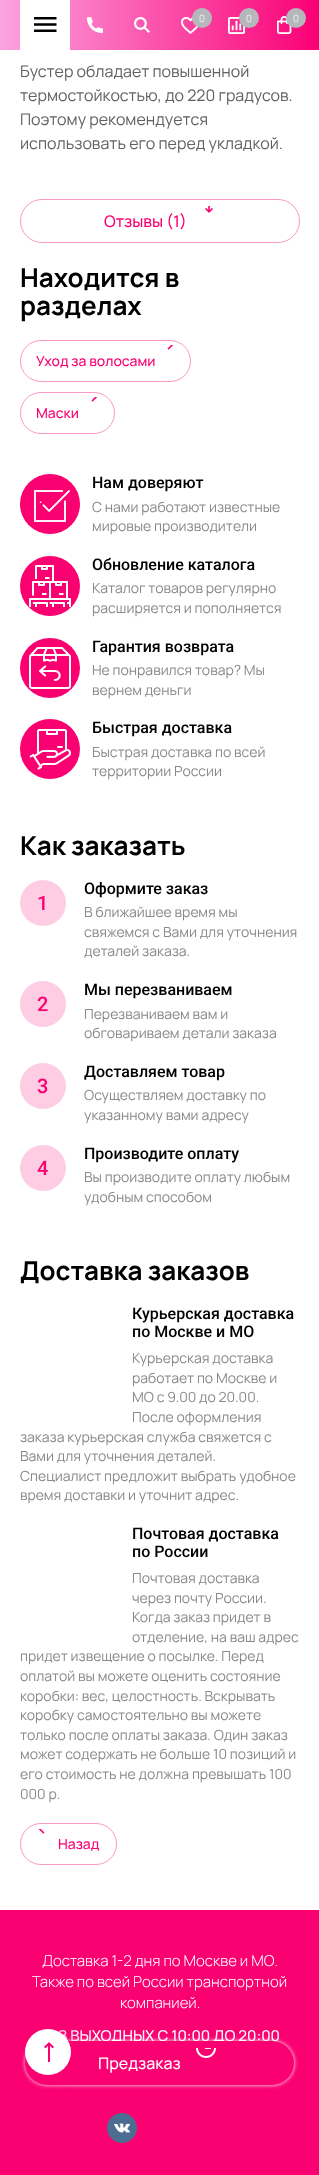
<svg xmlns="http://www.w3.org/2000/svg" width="319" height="2175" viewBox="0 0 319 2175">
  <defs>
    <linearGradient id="g1" gradientUnits="userSpaceOnUse" x1="0" y1="25" x2="319" y2="25"><stop offset="0" stop-color="#fca3e1"/><stop offset="1" stop-color="#fa0075"/></linearGradient>
    <filter id="blur1" x="-50%" y="-200%" width="200%" height="500%"><feGaussianBlur stdDeviation="2"/></filter>
    <filter id="blur2" x="-50%" y="-200%" width="200%" height="500%"><feGaussianBlur stdDeviation="7"/></filter>
  </defs>
  <rect width="100%" height="100%" fill="#ffffff"/>
  <rect x="0" y="0" width="319" height="50" fill="url(#g1)"/>
  <rect x="20" y="0" width="50" height="50" fill="#ffffff"/>
  <image x="34" y="17" width="23" height="15" href="img1.png"/>
  <image x="87" y="17" width="16" height="16" href="img2.png"/>
  <image x="134" y="17" width="16" height="16" href="img3.png"/>
  <image x="181" y="17" width="17" height="17" href="img4.png"/>
  <circle cx="202" cy="18" r="10" fill="#b6b7ba"/>
  <text x="199" y="22" font-family="Manrope" font-size="10" font-weight="300" fill="#ffffff">0</text>
  <image x="228" y="17" width="17" height="17" href="img5.png"/>
  <circle cx="249" cy="18" r="10" fill="#b6b7ba"/>
  <text x="246" y="22" font-family="Manrope" font-size="10" font-weight="300" fill="#ffffff">0</text>
  <image x="277" y="16" width="15" height="18" href="img6.png"/>
  <circle cx="296" cy="18" r="10" fill="#b6b7ba"/>
  <text x="293" y="22" font-family="Manrope" font-size="10" font-weight="300" fill="#ffffff">0</text>
  <text x="20" y="77" font-family="Manrope" font-size="16" fill="#616161">Бустер обладает повышенной</text>
  <text x="20" y="101" font-family="Manrope" font-size="16" fill="#616161">термостойкостью, до 220 градусов.</text>
  <text x="20" y="125" font-family="Manrope" font-size="16" fill="#616161">Поэтому рекомендуется</text>
  <text x="20" y="149" font-family="Manrope" font-size="16" fill="#616161">использовать его перед укладкой.</text>
  <rect x="20.5" y="199.5" width="279" height="43" rx="21.5" fill="none" stroke="#fd99c6"/>
  <image x="205" y="206" width="8" height="7" href="img7.png"/>
  <text x="104" y="227" font-family="Manrope" font-size="16" font-weight="500" fill="#fa0071">Отзывы (1)</text>
  <text x="20" y="287" font-family="Manrope" font-size="26" font-weight="bold" fill="#000000">Находится в</text>
  <text x="20" y="315" font-family="Manrope" font-size="26" font-weight="bold" fill="#000000">разделах</text>
  <rect x="20.5" y="340.5" width="170" height="41" rx="20.5" fill="none" stroke="#fd99c6"/>
  <image x="167" y="345" width="7" height="5" href="img8.png"/>
  <text x="36" y="366" font-family="Manrope" font-size="14" font-weight="500" fill="#fa0071">Уход за волосами</text>
  <rect x="20.5" y="392.5" width="94" height="41" rx="20.5" fill="none" stroke="#fd99c6"/>
  <image x="91" y="397" width="7" height="5" href="img8.png"/>
  <text x="36" y="418" font-family="Manrope" font-size="14" font-weight="500" fill="#fa0071">Маски</text>
  <rect x="0" y="1910" width="319" height="265" fill="#fa0071"/>
  <rect x="25" y="2041" width="269" height="44" rx="22" fill="#ffffff" filter="url(#blur1)"/>
  <text x="58" y="2041" font-family="Manrope" font-size="15" font-weight="500" fill="#ffffff">З ВЫХОДНЫХ С 10:00 ДО 20:00</text>
  <rect x="25" y="2041" width="269" height="44" rx="22" fill="#fa0071"/>
  <image x="196" y="2048" width="20" height="10" href="img9.png"/>
  <text x="98" y="2069" font-family="Manrope" font-size="16" font-weight="500" fill="#ffffff">Предзаказ</text>
  <circle cx="50" cy="504" r="30" fill="#fa0071"/>
  <image x="34" y="490" width="36" height="32" href="img10.png"/>
  <text x="92" y="488" font-family="Roboto" font-size="16" font-weight="500" fill="#000000">Нам доверяют</text>
  <text x="92" y="512" font-family="Manrope" font-size="14" fill="#898989">С нами работают известные</text>
  <text x="92" y="531" font-family="Manrope" font-size="14" fill="#898989">мировые производители</text>
  <circle cx="50" cy="586" r="30" fill="#fa0071"/>
  <image x="29" y="565" width="42" height="42" href="img11.png"/>
  <text x="92" y="570" font-family="Roboto" font-size="16" font-weight="500" fill="#000000">Обновление каталога</text>
  <text x="92" y="593" font-family="Manrope" font-size="14" fill="#898989">Каталог товаров регулярно</text>
  <text x="92" y="613" font-family="Manrope" font-size="14" fill="#898989">расширяется и пополняется</text>
  <circle cx="50" cy="668" r="30" fill="#fa0071"/>
  <image x="29" y="647" width="42" height="42" href="img12.png"/>
  <text x="92" y="652" font-family="Roboto" font-size="16" font-weight="500" fill="#000000">Гарантия возврата</text>
  <text x="92" y="675" font-family="Manrope" font-size="14" fill="#898989">Не понравился товар? Мы</text>
  <text x="92" y="695" font-family="Manrope" font-size="14" fill="#898989">вернем деньги</text>
  <circle cx="50" cy="749" r="30" fill="#fa0071"/>
  <image x="29" y="729" width="42" height="41" href="img13.png"/>
  <text x="92" y="733" font-family="Roboto" font-size="16" font-weight="500" fill="#000000">Быстрая доставка</text>
  <text x="92" y="757" font-family="Manrope" font-size="14" fill="#898989">Быстрая доставка по всей</text>
  <text x="92" y="776" font-family="Manrope" font-size="14" fill="#898989">территории России</text>
  <text x="20" y="855" font-family="Manrope" font-size="26" font-weight="bold" fill="#000000">Как заказать</text>
  <circle cx="43" cy="903" r="23" fill="#fecce3"/>
  <text x="37" y="910" font-family="Roboto" font-size="20" font-weight="500" fill="#fa0071">1</text>
  <text x="84" y="894" font-family="Roboto" font-size="16" font-weight="500" fill="#000000">Оформите заказ</text>
  <text x="84" y="917" font-family="Manrope" font-size="14" fill="#898989">В ближайшее время мы</text>
  <text x="84" y="937" font-family="Manrope" font-size="14" fill="#898989">свяжемся с Вами для уточнения</text>
  <text x="84" y="956" font-family="Manrope" font-size="14" fill="#898989">деталей заказа.</text>
  <circle cx="43" cy="1004" r="23" fill="#fecce3"/>
  <text x="37" y="1011" font-family="Roboto" font-size="20" font-weight="500" fill="#fa0071">2</text>
  <text x="84" y="995" font-family="Roboto" font-size="16" font-weight="500" fill="#000000">Мы перезваниваем</text>
  <text x="84" y="1019" font-family="Manrope" font-size="14" fill="#898989">Перезваниваем вам и</text>
  <text x="84" y="1038" font-family="Manrope" font-size="14" fill="#898989">обговариваем детали заказа</text>
  <circle cx="43" cy="1086" r="23" fill="#fecce3"/>
  <text x="37" y="1093" font-family="Roboto" font-size="20" font-weight="500" fill="#fa0071">3</text>
  <text x="84" y="1077" font-family="Roboto" font-size="16" font-weight="500" fill="#000000">Доставляем товар</text>
  <text x="84" y="1100" font-family="Manrope" font-size="14" fill="#898989">Осуществляем доставку по</text>
  <text x="84" y="1120" font-family="Manrope" font-size="14" fill="#898989">указанному вами адресу</text>
  <circle cx="43" cy="1168" r="23" fill="#fecce3"/>
  <text x="37" y="1175" font-family="Roboto" font-size="20" font-weight="500" fill="#fa0071">4</text>
  <text x="84" y="1159" font-family="Roboto" font-size="16" font-weight="500" fill="#000000">Производите оплату</text>
  <text x="84" y="1182" font-family="Manrope" font-size="14" fill="#898989">Вы производите оплату любым</text>
  <text x="84" y="1202" font-family="Manrope" font-size="14" fill="#898989">удобным способом</text>
  <text x="20" y="1280" font-family="Manrope" font-size="26" font-weight="bold" fill="#000000">Доставка заказов</text>
  <text x="132" y="1319" font-family="Roboto" font-size="16" font-weight="500" fill="#000000">Курьерская доставка</text>
  <text x="132" y="1337" font-family="Roboto" font-size="16" font-weight="500" fill="#000000">по Москве и МО</text>
  <text x="132" y="1363" font-family="Manrope" font-size="14" fill="#898989">Курьерская доставка</text>
  <text x="132" y="1383" font-family="Manrope" font-size="14" fill="#898989">работает по Москве и</text>
  <text x="132" y="1402" font-family="Manrope" font-size="14" fill="#898989">МО с 9.00 до 20.00.</text>
  <text x="132" y="1422" font-family="Manrope" font-size="14" fill="#898989">После оформления</text>
  <text x="20" y="1442" font-family="Manrope" font-size="14" fill="#898989">заказа курьерская служба свяжется с</text>
  <text x="20" y="1461" font-family="Manrope" font-size="14" fill="#898989">Вами для уточнения деталей.</text>
  <text x="20" y="1481" font-family="Manrope" font-size="14" fill="#898989">Специалист предложит выбрать удобное</text>
  <text x="20" y="1500" font-family="Manrope" font-size="14" fill="#898989">время доставки и уточнит адрес.</text>
  <text x="132" y="1539" font-family="Roboto" font-size="16" font-weight="500" fill="#000000">Почтовая доставка</text>
  <text x="132" y="1557" font-family="Roboto" font-size="16" font-weight="500" fill="#000000">по России</text>
  <text x="132" y="1583" font-family="Manrope" font-size="14" fill="#898989">Почтовая доставка</text>
  <text x="132" y="1603" font-family="Manrope" font-size="14" fill="#898989">через почту России.</text>
  <text x="132" y="1622" font-family="Manrope" font-size="14" fill="#898989">Когда заказ придет в</text>
  <text x="132" y="1642" font-family="Manrope" font-size="14" fill="#898989">отделение, на ваш адрес</text>
  <text x="20" y="1661" font-family="Manrope" font-size="14" fill="#898989">придет извещение о посылке. Перед</text>
  <text x="20" y="1681" font-family="Manrope" font-size="14" fill="#898989">оплатой вы можете оценить состояние</text>
  <text x="20" y="1701" font-family="Manrope" font-size="14" fill="#898989">коробки: вес, целостность. Вскрывать</text>
  <text x="20" y="1720" font-family="Manrope" font-size="14" fill="#898989">коробку самостоятельно вы можете</text>
  <text x="20" y="1740" font-family="Manrope" font-size="14" fill="#898989">только после оплаты заказа. Один заказ</text>
  <text x="20" y="1759" font-family="Manrope" font-size="14" fill="#898989">может содержать не больше 10 позиций и</text>
  <text x="20" y="1779" font-family="Manrope" font-size="14" fill="#898989">его стоимость не должна превышать 100</text>
  <text x="20" y="1799" font-family="Manrope" font-size="14" fill="#898989">000 р.</text>
  <rect x="20.5" y="1823.5" width="96" height="41" rx="20.5" fill="none" stroke="#fd99c6"/>
  <image x="38" y="1829" width="7" height="5" href="img14.png"/>
  <text x="58" y="1849" font-family="Manrope" font-size="14" font-weight="500" fill="#fa0071">Назад</text>
  <text x="42" y="1966" font-family="Manrope" font-size="15" font-weight="300" fill="#ffffff">Доставка 1-2 дня по Москве и МО.</text>
  <text x="32" y="1987" font-family="Manrope" font-size="15" font-weight="300" fill="#ffffff">Также по всей России транспортной</text>
  <text x="120" y="2008" font-family="Manrope" font-size="15" font-weight="300" fill="#ffffff">компанией.</text>
  <image x="107" y="2113" width="30" height="30" href="img15.png"/>
  <rect x="18" y="2022" width="60" height="60" rx="30" fill="#fa0071" fill-opacity="0.3" filter="url(#blur2)"/>
  <circle cx="48" cy="2052" r="23" fill="#ffffff"/>
  <image x="44" y="2042" width="10" height="20" href="img16.png"/>
</svg>
